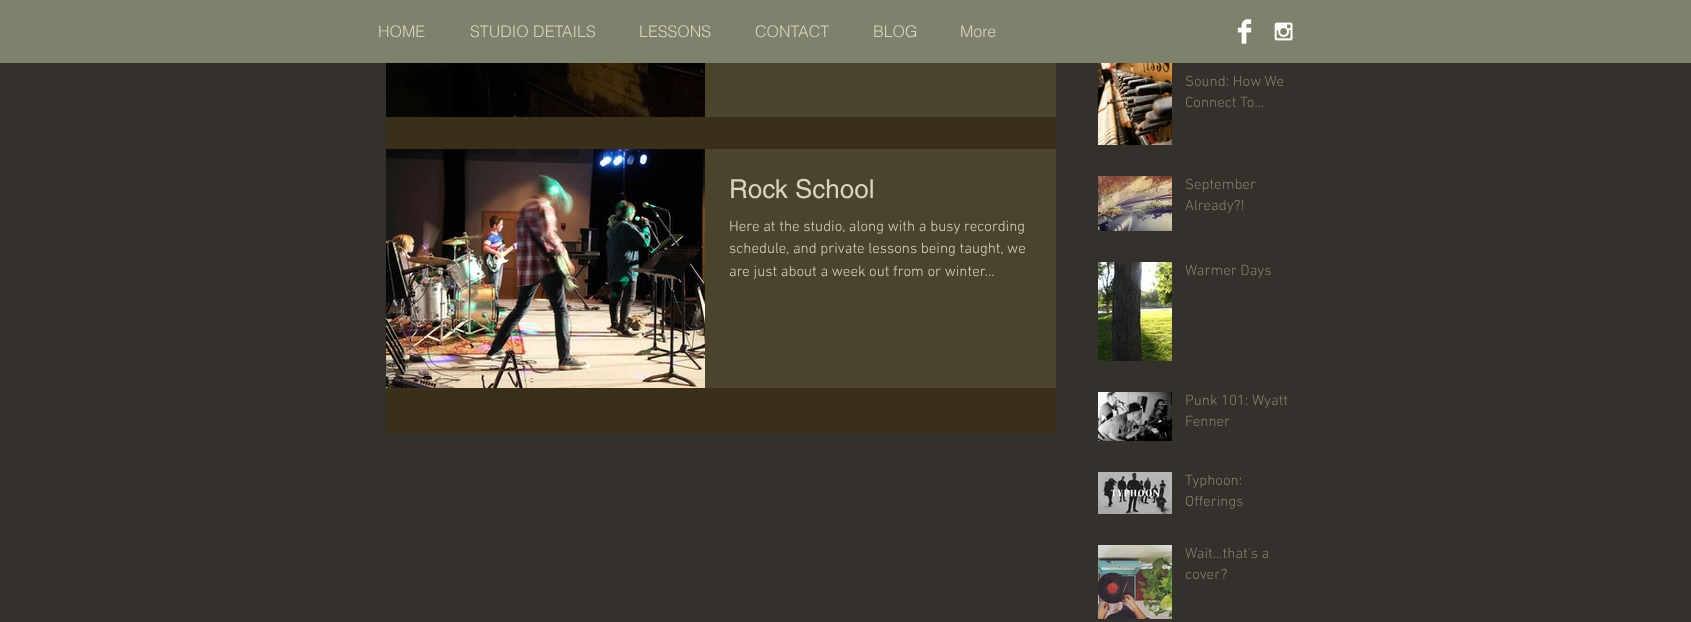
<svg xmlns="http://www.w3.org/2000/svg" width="1691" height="622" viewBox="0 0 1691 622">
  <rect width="100%" height="100%" fill="#34312d"/>
  <rect x="0" y="0" width="1691" height="63" fill="#7e826d"/>
  <text x="378" y="37" font-family="helvetica" font-size="16" font-weight="300" fill="#dcd2bb">HOME</text>
  <text x="470" y="37" font-family="helvetica" font-size="16" font-weight="300" fill="#dcd2bb">STUDIO DETAILS</text>
  <text x="639" y="37" font-family="helvetica" font-size="16" font-weight="300" fill="#dcd2bb">LESSONS</text>
  <text x="755" y="37" font-family="helvetica" font-size="16" font-weight="300" fill="#dcd2bb">CONTACT</text>
  <text x="873" y="37" font-family="helvetica" font-size="16" font-weight="300" fill="#dcd2bb">BLOG</text>
  <text x="960" y="37" font-family="helvetica" font-size="16" font-weight="300" fill="#dcd2bb">More</text>
  <image x="1237" y="19" width="15" height="25" href="img1.png"/>
  <image x="1274" y="22" width="19" height="19" href="img2.png"/>
  <rect x="386" y="117" width="670" height="317" fill="#3a2f18"/>
  <image x="386" y="63" width="319" height="54" href="img3.png"/>
  <rect x="705" y="63" width="351" height="54" fill="#4b442d"/>
  <image x="386" y="149" width="319" height="239" href="img4.png"/>
  <rect x="705" y="149" width="351" height="239" fill="#4b442d"/>
  <text x="729" y="198" font-family="helvetica" font-size="26" fill="#dcd2bb">Rock School</text>
  <text x="729" y="231" font-family="'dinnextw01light'" font-size="15" font-weight="300" fill="#dcd2bb">Here at the studio, along with a busy recording</text>
  <text x="729" y="253" font-family="'dinnextw01light'" font-size="15" font-weight="300" fill="#dcd2bb">schedule, and private lessons being taught, we</text>
  <text x="729" y="276" font-family="'dinnextw01light'" font-size="15" font-weight="300" fill="#dcd2bb">are just about a week out from or winter...</text>
  <image x="1098" y="63" width="74" height="82" href="img5.png"/>
  <text x="1185" y="86" font-family="'dinnextw01light'" font-size="15" font-weight="300" fill="#7e826d">Sound: How We</text>
  <text x="1185" y="107" font-family="'dinnextw01light'" font-size="15" font-weight="300" fill="#7e826d">Connect To…</text>
  <image x="1098" y="176" width="74" height="55" href="img6.png"/>
  <text x="1185" y="189" font-family="'dinnextw01light'" font-size="15" font-weight="300" fill="#7e826d">September</text>
  <text x="1185" y="210" font-family="'dinnextw01light'" font-size="15" font-weight="300" fill="#7e826d">Already?!</text>
  <image x="1098" y="262" width="74" height="99" href="img7.png"/>
  <text x="1185" y="275" font-family="'dinnextw01light'" font-size="15" font-weight="300" fill="#7e826d">Warmer Days</text>
  <image x="1098" y="392" width="74" height="49" href="img8.png"/>
  <text x="1185" y="405" font-family="'dinnextw01light'" font-size="15" font-weight="300" fill="#7e826d">Punk 101: Wyatt</text>
  <text x="1185" y="426" font-family="'dinnextw01light'" font-size="15" font-weight="300" fill="#7e826d">Fenner</text>
  <image x="1098" y="472" width="74" height="42" href="img9.png"/>
  <text x="1185" y="485" font-family="'dinnextw01light'" font-size="15" font-weight="300" fill="#7e826d">Typhoon:</text>
  <text x="1185" y="506" font-family="'dinnextw01light'" font-size="15" font-weight="300" fill="#7e826d">Offerings</text>
  <image x="1098" y="545" width="74" height="74" href="img10.png"/>
  <text x="1185" y="558" font-family="'dinnextw01light'" font-size="15" font-weight="300" fill="#7e826d">Wait...that's a</text>
  <text x="1185" y="579" font-family="'dinnextw01light'" font-size="15" font-weight="300" fill="#7e826d">cover?</text>
</svg>
